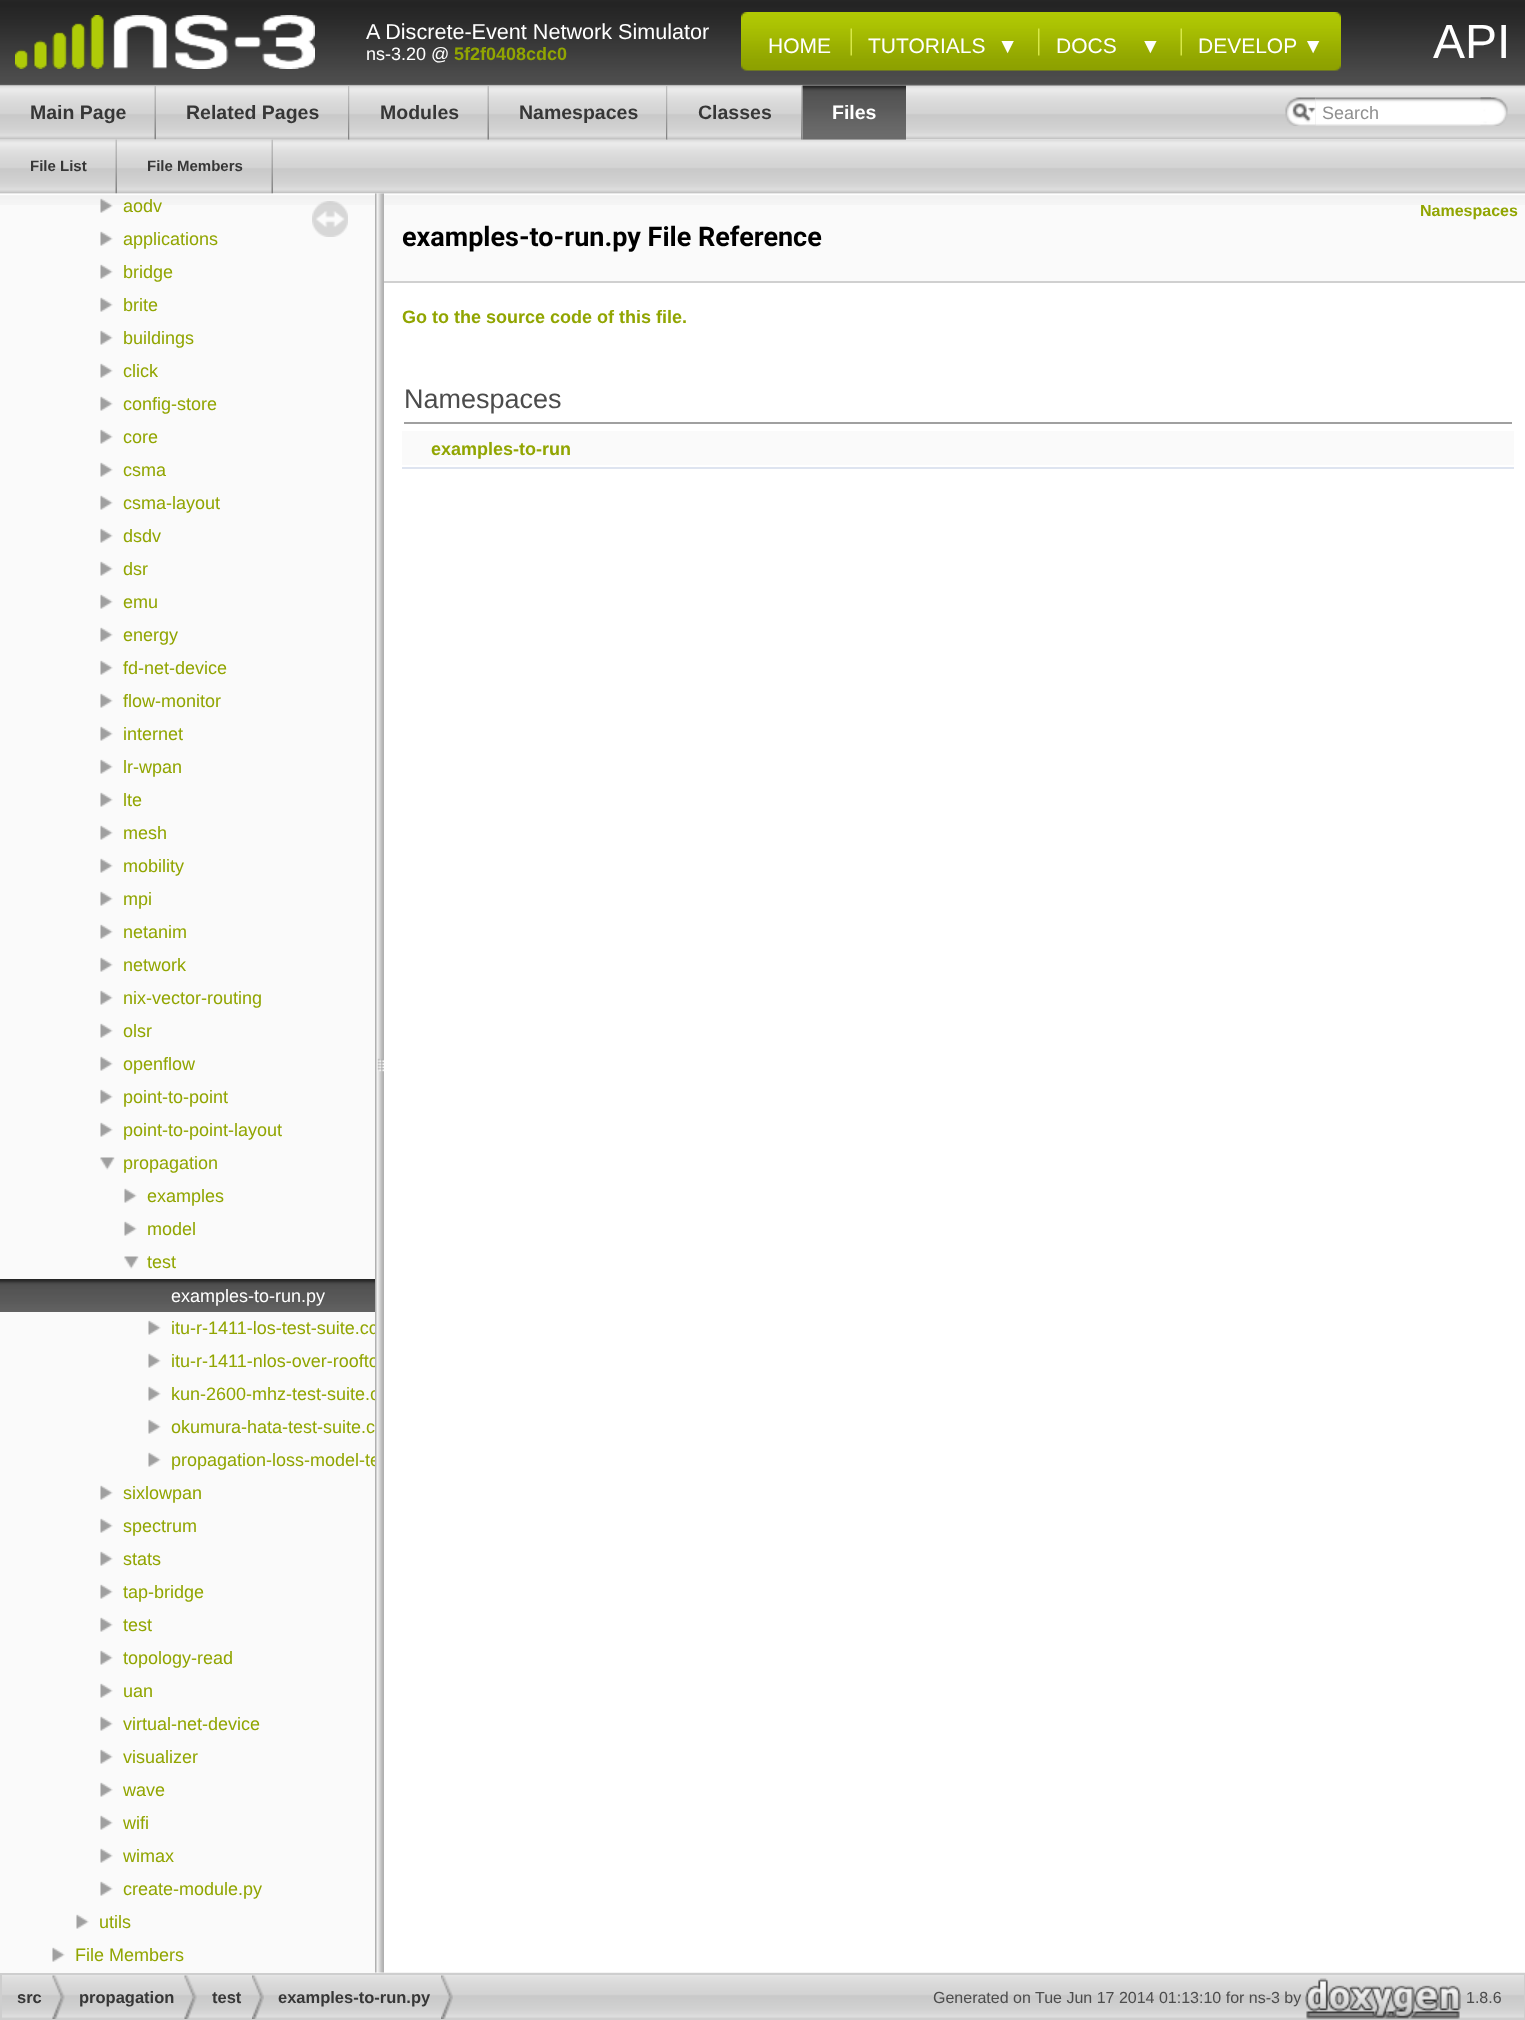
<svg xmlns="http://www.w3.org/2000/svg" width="1525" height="2020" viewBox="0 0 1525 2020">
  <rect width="100%" height="100%" fill="#ffffff"/>
  <image x="0" y="0" width="1525" height="84" href="img1.png"/>
  <rect x="0" y="84" width="1525" height="2" fill="#5b5b5b"/>
  <image x="15" y="15" width="300" height="54" href="img2.png"/>
  <text x="366" y="39" font-family="Liberation Sans" font-size="21.6" fill="#ffffff">A Discrete-Event Network Simulator</text>
  <text x="366" y="60" font-family="Liberation Sans" font-size="18" fill="#ffffff">ns-3.20 @</text>
  <text x="454" y="60" font-family="Liberation Sans" font-size="18" font-weight="bold" fill="#91a501">5f2f0408cdc0</text>
  <image x="741" y="12" width="600" height="59" href="img3.png"/>
  <text x="768" y="53" font-family="Liberation Sans" font-size="21" fill="#ffffff">HOME</text>
  <image x="850" y="28" width="2" height="28" href="img4.png"/>
  <text x="868" y="53" font-family="Liberation Sans" font-size="21" fill="#ffffff" xml:space="preserve">TUTORIALS  ▼</text>
  <image x="1038" y="28" width="2" height="28" href="img5.png"/>
  <text x="1056" y="53" font-family="Liberation Sans" font-size="21" fill="#ffffff" xml:space="preserve">DOCS    ▼</text>
  <image x="1180" y="28" width="2" height="28" href="img4.png"/>
  <text x="1198" y="53" font-family="Liberation Sans" font-size="21" fill="#ffffff">DEVELOP ▼</text>
  <text x="1433" y="58" font-family="Liberation Sans" font-size="48" fill="#ffffff">API</text>
  <image x="0" y="85" width="1525" height="55" href="img6.png"/>
  <image x="0" y="85" width="156" height="55" href="img7.png"/>
  <image x="154" y="86" width="2" height="54" href="img8.png"/>
  <text x="30" y="119" font-family="Liberation Sans" font-size="19.5" font-weight="bold" fill="#373737">Main Page</text>
  <image x="156" y="85" width="194" height="55" href="img9.png"/>
  <image x="348" y="85" width="2" height="55" href="img10.png"/>
  <text x="186" y="119" font-family="Liberation Sans" font-size="19.5" font-weight="bold" fill="#373737">Related Pages</text>
  <image x="349" y="85" width="140" height="55" href="img11.png"/>
  <image x="487" y="86" width="2" height="54" href="img8.png"/>
  <text x="380" y="119" font-family="Liberation Sans" font-size="19.5" font-weight="bold" fill="#373737">Modules</text>
  <image x="489" y="85" width="179" height="55" href="img12.png"/>
  <image x="666" y="85" width="2" height="55" href="img10.png"/>
  <text x="519" y="119" font-family="Liberation Sans" font-size="19.5" font-weight="bold" fill="#373737">Namespaces</text>
  <image x="667" y="85" width="136" height="55" href="img13.png"/>
  <image x="801" y="85" width="2" height="55" href="img10.png"/>
  <text x="698" y="119" font-family="Liberation Sans" font-size="19.5" font-weight="bold" fill="#373737">Classes</text>
  <image x="802" y="85" width="104" height="55" href="img14.png"/>
  <image x="802" y="85" width="104" height="55" href="img15.png"/>
  <text x="832" y="119" font-family="Liberation Sans" font-size="19.5" font-weight="bold" fill="#ffffff">Files</text>
  <image x="1285" y="97" width="31" height="29" href="img16.png"/>
  <image x="1292" y="103" width="24" height="19" href="img17.png"/>
  <image x="1315" y="97" width="176" height="29" href="img18.png"/>
  <text x="1322" y="119" font-family="Liberation Sans" font-size="18" fill="#909090">Search</text>
  <image x="1480" y="97" width="28" height="29" href="img19.png"/>
  <image x="0" y="140" width="1525" height="54" href="img20.png"/>
  <image x="0" y="139" width="117" height="55" href="img21.png"/>
  <image x="115" y="139" width="2" height="55" href="img22.png"/>
  <text x="30" y="171" font-family="Liberation Sans" font-size="15" font-weight="bold" fill="#373737">File List</text>
  <image x="117" y="139" width="156" height="55" href="img23.png"/>
  <image x="271" y="139" width="2" height="55" href="img22.png"/>
  <text x="147" y="171" font-family="Liberation Sans" font-size="15" font-weight="bold" fill="#373737">File Members</text>
  <image x="2" y="1972" width="1523" height="47" href="img32.png"/>
  <rect x="0" y="205" width="375" height="1768" fill="#fafafa"/>
  <image x="0" y="193" width="375" height="12" href="img24.png"/>
  <image x="100" y="198" width="13" height="15" href="img25.png"/>
  <text x="123" y="212" font-family="Liberation Sans" font-size="18" fill="#91a501">aodv</text>
  <image x="100" y="231" width="13" height="15" href="img26.png"/>
  <text x="123" y="245" font-family="Liberation Sans" font-size="18" fill="#91a501">applications</text>
  <image x="100" y="264" width="13" height="15" href="img26.png"/>
  <text x="123" y="278" font-family="Liberation Sans" font-size="18" fill="#91a501">bridge</text>
  <image x="100" y="297" width="13" height="15" href="img26.png"/>
  <text x="123" y="311" font-family="Liberation Sans" font-size="18" fill="#91a501">brite</text>
  <image x="100" y="330" width="13" height="15" href="img26.png"/>
  <text x="123" y="344" font-family="Liberation Sans" font-size="18" fill="#91a501">buildings</text>
  <image x="100" y="363" width="13" height="15" href="img26.png"/>
  <text x="123" y="377" font-family="Liberation Sans" font-size="18" fill="#91a501">click</text>
  <image x="100" y="396" width="13" height="15" href="img26.png"/>
  <text x="123" y="410" font-family="Liberation Sans" font-size="18" fill="#91a501">config-store</text>
  <image x="100" y="429" width="13" height="15" href="img26.png"/>
  <text x="123" y="443" font-family="Liberation Sans" font-size="18" fill="#91a501">core</text>
  <image x="100" y="462" width="13" height="15" href="img26.png"/>
  <text x="123" y="476" font-family="Liberation Sans" font-size="18" fill="#91a501">csma</text>
  <image x="100" y="495" width="13" height="15" href="img26.png"/>
  <text x="123" y="509" font-family="Liberation Sans" font-size="18" fill="#91a501">csma-layout</text>
  <image x="100" y="528" width="13" height="15" href="img26.png"/>
  <text x="123" y="542" font-family="Liberation Sans" font-size="18" fill="#91a501">dsdv</text>
  <image x="100" y="561" width="13" height="15" href="img26.png"/>
  <text x="123" y="575" font-family="Liberation Sans" font-size="18" fill="#91a501">dsr</text>
  <image x="100" y="594" width="13" height="15" href="img26.png"/>
  <text x="123" y="608" font-family="Liberation Sans" font-size="18" fill="#91a501">emu</text>
  <image x="100" y="627" width="13" height="15" href="img26.png"/>
  <text x="123" y="641" font-family="Liberation Sans" font-size="18" fill="#91a501">energy</text>
  <image x="100" y="660" width="13" height="15" href="img26.png"/>
  <text x="123" y="674" font-family="Liberation Sans" font-size="18" fill="#91a501">fd-net-device</text>
  <image x="100" y="693" width="13" height="15" href="img26.png"/>
  <text x="123" y="707" font-family="Liberation Sans" font-size="18" fill="#91a501">flow-monitor</text>
  <image x="100" y="726" width="13" height="15" href="img26.png"/>
  <text x="123" y="740" font-family="Liberation Sans" font-size="18" fill="#91a501">internet</text>
  <image x="100" y="759" width="13" height="15" href="img26.png"/>
  <text x="123" y="773" font-family="Liberation Sans" font-size="18" fill="#91a501">lr-wpan</text>
  <image x="100" y="792" width="13" height="15" href="img26.png"/>
  <text x="123" y="806" font-family="Liberation Sans" font-size="18" fill="#91a501">lte</text>
  <image x="100" y="825" width="13" height="15" href="img26.png"/>
  <text x="123" y="839" font-family="Liberation Sans" font-size="18" fill="#91a501">mesh</text>
  <image x="100" y="858" width="13" height="15" href="img26.png"/>
  <text x="123" y="872" font-family="Liberation Sans" font-size="18" fill="#91a501">mobility</text>
  <image x="100" y="891" width="13" height="15" href="img26.png"/>
  <text x="123" y="905" font-family="Liberation Sans" font-size="18" fill="#91a501">mpi</text>
  <image x="100" y="924" width="13" height="15" href="img26.png"/>
  <text x="123" y="938" font-family="Liberation Sans" font-size="18" fill="#91a501">netanim</text>
  <image x="100" y="957" width="13" height="15" href="img26.png"/>
  <text x="123" y="971" font-family="Liberation Sans" font-size="18" fill="#91a501">network</text>
  <image x="100" y="990" width="13" height="15" href="img26.png"/>
  <text x="123" y="1004" font-family="Liberation Sans" font-size="18" fill="#91a501">nix-vector-routing</text>
  <image x="100" y="1023" width="13" height="15" href="img26.png"/>
  <text x="123" y="1037" font-family="Liberation Sans" font-size="18" fill="#91a501">olsr</text>
  <image x="100" y="1056" width="13" height="15" href="img26.png"/>
  <text x="123" y="1070" font-family="Liberation Sans" font-size="18" fill="#91a501">openflow</text>
  <image x="100" y="1089" width="13" height="15" href="img26.png"/>
  <text x="123" y="1103" font-family="Liberation Sans" font-size="18" fill="#91a501">point-to-point</text>
  <image x="100" y="1122" width="13" height="15" href="img26.png"/>
  <text x="123" y="1136" font-family="Liberation Sans" font-size="18" fill="#91a501">point-to-point-layout</text>
  <image x="100" y="1157" width="15" height="13" href="img27.png"/>
  <text x="123" y="1169" font-family="Liberation Sans" font-size="18" fill="#91a501">propagation</text>
  <image x="124" y="1188" width="13" height="15" href="img26.png"/>
  <text x="147" y="1202" font-family="Liberation Sans" font-size="18" fill="#91a501">examples</text>
  <image x="124" y="1221" width="13" height="15" href="img26.png"/>
  <text x="147" y="1235" font-family="Liberation Sans" font-size="18" fill="#91a501">model</text>
  <image x="124" y="1256" width="15" height="13" href="img27.png"/>
  <text x="147" y="1268" font-family="Liberation Sans" font-size="18" fill="#91a501">test</text>
  <image x="0" y="1279" width="375" height="33" href="img28.png"/>
  <text x="171" y="1302" font-family="Liberation Sans" font-size="18" fill="#ffffff">examples-to-run.py</text>
  <image x="148" y="1320" width="13" height="15" href="img26.png"/>
  <text x="171" y="1334" font-family="Liberation Sans" font-size="18" fill="#91a501">itu-r-1411-los-test-suite.cc</text>
  <image x="148" y="1353" width="13" height="15" href="img26.png"/>
  <text x="171" y="1367" font-family="Liberation Sans" font-size="18" fill="#91a501">itu-r-1411-nlos-over-roofto</text>
  <image x="148" y="1386" width="13" height="15" href="img26.png"/>
  <text x="171" y="1400" font-family="Liberation Sans" font-size="18" fill="#91a501">kun-2600-mhz-test-suite.c</text>
  <image x="148" y="1419" width="13" height="15" href="img26.png"/>
  <text x="171" y="1433" font-family="Liberation Sans" font-size="18" fill="#91a501">okumura-hata-test-suite.c</text>
  <image x="148" y="1452" width="13" height="15" href="img26.png"/>
  <text x="171" y="1466" font-family="Liberation Sans" font-size="18" fill="#91a501">propagation-loss-model-te</text>
  <image x="100" y="1485" width="13" height="15" href="img26.png"/>
  <text x="123" y="1499" font-family="Liberation Sans" font-size="18" fill="#91a501">sixlowpan</text>
  <image x="100" y="1518" width="13" height="15" href="img26.png"/>
  <text x="123" y="1532" font-family="Liberation Sans" font-size="18" fill="#91a501">spectrum</text>
  <image x="100" y="1551" width="13" height="15" href="img26.png"/>
  <text x="123" y="1565" font-family="Liberation Sans" font-size="18" fill="#91a501">stats</text>
  <image x="100" y="1584" width="13" height="15" href="img26.png"/>
  <text x="123" y="1598" font-family="Liberation Sans" font-size="18" fill="#91a501">tap-bridge</text>
  <image x="100" y="1617" width="13" height="15" href="img26.png"/>
  <text x="123" y="1631" font-family="Liberation Sans" font-size="18" fill="#91a501">test</text>
  <image x="100" y="1650" width="13" height="15" href="img26.png"/>
  <text x="123" y="1664" font-family="Liberation Sans" font-size="18" fill="#91a501">topology-read</text>
  <image x="100" y="1683" width="13" height="15" href="img26.png"/>
  <text x="123" y="1697" font-family="Liberation Sans" font-size="18" fill="#91a501">uan</text>
  <image x="100" y="1716" width="13" height="15" href="img26.png"/>
  <text x="123" y="1730" font-family="Liberation Sans" font-size="18" fill="#91a501">virtual-net-device</text>
  <image x="100" y="1749" width="13" height="15" href="img26.png"/>
  <text x="123" y="1763" font-family="Liberation Sans" font-size="18" fill="#91a501">visualizer</text>
  <image x="100" y="1782" width="13" height="15" href="img26.png"/>
  <text x="123" y="1796" font-family="Liberation Sans" font-size="18" fill="#91a501">wave</text>
  <image x="100" y="1815" width="13" height="15" href="img26.png"/>
  <text x="123" y="1829" font-family="Liberation Sans" font-size="18" fill="#91a501">wifi</text>
  <image x="100" y="1848" width="13" height="15" href="img26.png"/>
  <text x="123" y="1862" font-family="Liberation Sans" font-size="18" fill="#91a501">wimax</text>
  <image x="100" y="1881" width="13" height="15" href="img26.png"/>
  <text x="123" y="1895" font-family="Liberation Sans" font-size="18" fill="#91a501">create-module.py</text>
  <image x="76" y="1914" width="13" height="15" href="img26.png"/>
  <text x="99" y="1928" font-family="Liberation Sans" font-size="18" fill="#91a501">utils</text>
  <image x="52" y="1947" width="13" height="15" href="img26.png"/>
  <text x="75" y="1961" font-family="Liberation Sans" font-size="18" fill="#91a501">File Members</text>
  <image x="312" y="201" width="36" height="36" href="img29.png"/>
  <image x="375" y="193" width="9" height="1780" href="img30.png"/>
  <rect x="384" y="205" width="1141" height="76" fill="#fafafa"/>
  <image x="384" y="193" width="1141" height="12" href="img31.png"/>
  <rect x="384" y="281" width="1141" height="2" fill="#d0d0d0"/>
  <text x="1420" y="216" font-family="Liberation Sans" font-size="16" font-weight="bold" fill="#91a501">Namespaces</text>
  <text x="402" y="246" font-family="Roboto" font-size="27" font-weight="bold" fill="#000000">examples-to-run.py File Reference</text>
  <text x="402" y="323" font-family="Liberation Sans" font-size="18" font-weight="bold" fill="#91a501">Go to the source code of this file.</text>
  <rect x="404" y="422" width="1108" height="2" fill="#a0a0a0"/>
  <text x="404" y="408" font-family="Liberation Sans" font-size="27" fill="#4c4c4c">Namespaces</text>
  <rect x="402" y="431" width="1112" height="34" fill="#fafafa"/>
  <text x="431" y="455" font-family="Liberation Sans" font-size="18" font-weight="bold" fill="#91a501">examples-to-run</text>
  <rect x="402" y="467" width="1112" height="2" fill="#dee4f0"/>
  <rect x="1" y="1974" width="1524" height="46" fill="none" stroke="#cecece" stroke-width="2"/>
  <image x="52" y="1975" width="13" height="44" href="img33.png"/>
  <text x="17" y="2003" font-family="Liberation Sans" font-size="16.5" font-weight="bold" fill="#373737">src</text>
  <image x="184" y="1975" width="13" height="44" href="img33.png"/>
  <text x="79" y="2003" font-family="Liberation Sans" font-size="16.5" font-weight="bold" fill="#373737">propagation</text>
  <image x="252" y="1975" width="12" height="44" href="img34.png"/>
  <text x="212" y="2003" font-family="Liberation Sans" font-size="16.5" font-weight="bold" fill="#373737">test</text>
  <image x="441" y="1975" width="12" height="44" href="img35.png"/>
  <text x="278" y="2003" font-family="Liberation Sans" font-size="16.5" font-weight="bold" fill="#373737">examples-to-run.py</text>
  <text x="933" y="2003" font-family="Liberation Sans" font-size="16" fill="#4c4c4c">Generated on Tue Jun 17 2014 01:13:10 for ns-3 by</text>
  <image x="1305" y="1978" width="156" height="41" href="img36.png"/>
  <text x="1466" y="2003" font-family="Liberation Sans" font-size="16" fill="#4c4c4c">1.8.6</text>
</svg>
